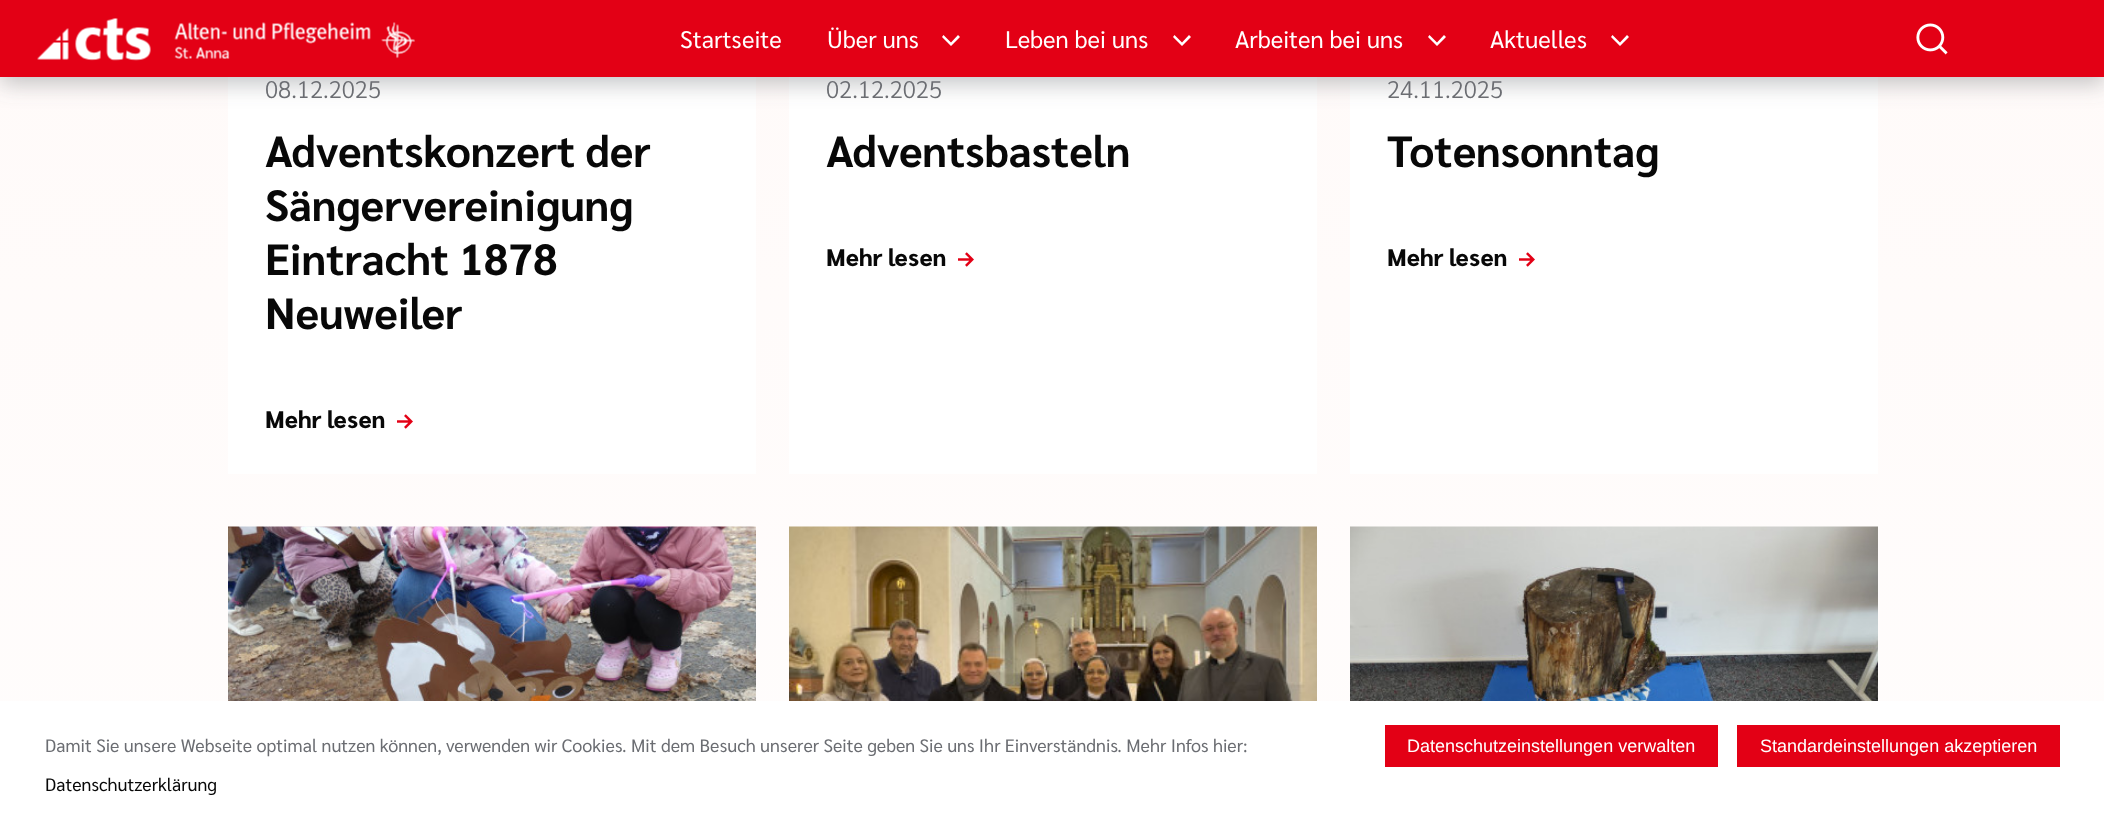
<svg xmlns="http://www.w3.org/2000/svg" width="2104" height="824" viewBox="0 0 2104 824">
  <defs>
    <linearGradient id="g1" gradientUnits="userSpaceOnUse" x1="1052" y1="-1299" x2="1052" y2="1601"><stop offset="0" stop-color="#fff6f4"/><stop offset="1" stop-color="#ffffff"/></linearGradient>
    <clipPath id="clip1"><path d="M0 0H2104V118H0ZM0 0H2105V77H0Z" clip-rule="evenodd"/></clipPath>
    <filter id="blur1" x="-50%" y="-200%" width="200%" height="500%"><feGaussianBlur stdDeviation="11"/></filter>
  </defs>
  <rect width="100%" height="100%" fill="#ffffff"/>
  <rect x="0" y="0" width="2104" height="77" fill="#e30015"/>
  <rect x="0" y="77" width="2104" height="624" fill="url(#g1)"/>
  <rect x="228" y="77" width="528" height="397" fill="#ffffff"/>
  <rect x="789" y="77" width="528" height="397" fill="#ffffff"/>
  <rect x="1350" y="77" width="528" height="397" fill="#ffffff"/>
  <g clip-path="url(#clip1)">
    <rect x="0" y="8" width="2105" height="76" fill="#6b6d72" fill-opacity="0.4" filter="url(#blur1)"/>
  </g>
  <image x="37" y="18" width="378" height="43" href="img1.png"/>
  <text x="680" y="48" font-family="Sarabun" font-size="24" fill="#ffffff">Startseite</text>
  <text x="827" y="48" font-family="Sarabun" font-size="24" fill="#ffffff">Über uns</text>
  <path d="M942 37L943.5 35L951 42.5L958 35L960 37L951 46Z" fill="#ffffff"/>
  <text x="1005" y="48" font-family="Sarabun" font-size="24" fill="#ffffff">Leben bei uns</text>
  <path d="M1173 37L1174.5 35L1182 42.5L1189 35L1191 37L1182 46Z" fill="#ffffff"/>
  <text x="1235" y="48" font-family="Sarabun" font-size="24" fill="#ffffff">Arbeiten bei uns</text>
  <path d="M1428 37L1429.5 35L1437 42.5L1444 35L1446 37L1437 46Z" fill="#ffffff"/>
  <text x="1490" y="48" font-family="Sarabun" font-size="24" fill="#ffffff">Aktuelles</text>
  <path d="M1611 37L1612.5 35L1620 42.5L1627 35L1629 37L1620 46Z" fill="#ffffff"/>
  <image x="1916" y="23" width="32" height="32" href="img2.png"/>
  <text x="265" y="98" font-family="Sarabun" font-size="24" font-weight="300" fill="#6b6d72">08.12.2025</text>
  <text x="265" y="167" font-family="Sarabun" font-size="43.5" font-weight="bold" fill="#080808">Adventskonzert der</text>
  <text x="265" y="221" font-family="Sarabun" font-size="43.5" font-weight="bold" fill="#080808">Sängervereinigung</text>
  <text x="265" y="275" font-family="Sarabun" font-size="43.5" font-weight="bold" fill="#080808">Eintracht 1878</text>
  <text x="265" y="329" font-family="Sarabun" font-size="43.5" font-weight="bold" fill="#080808">Neuweiler</text>
  <image x="397" y="414" width="16" height="15" href="img3.png"/>
  <text x="265" y="428" font-family="Sarabun" font-size="24" font-weight="800" fill="#080808">Mehr lesen</text>
  <text x="826" y="98" font-family="Sarabun" font-size="24" font-weight="300" fill="#6b6d72">02.12.2025</text>
  <text x="826" y="167" font-family="Sarabun" font-size="43.5" font-weight="bold" fill="#080808">Adventsbasteln</text>
  <image x="958" y="252" width="16" height="15" href="img3.png"/>
  <text x="826" y="266" font-family="Sarabun" font-size="24" font-weight="800" fill="#080808">Mehr lesen</text>
  <text x="1387" y="98" font-family="Sarabun" font-size="24" font-weight="300" fill="#6b6d72">24.11.2025</text>
  <text x="1387" y="167" font-family="Sarabun" font-size="43.5" font-weight="bold" fill="#080808">Totensonntag</text>
  <image x="1519" y="252" width="16" height="15" href="img3.png"/>
  <text x="1387" y="266" font-family="Sarabun" font-size="24" font-weight="800" fill="#080808">Mehr lesen</text>
  <image x="228" y="526" width="528" height="175" href="img4.png"/>
  <image x="789" y="526" width="528" height="175" href="img5.png"/>
  <image x="1350" y="526" width="528" height="175" href="img6.png"/>
  <text x="45" y="752" font-family="Sarabun" font-size="18" fill="#6b6d72">Damit Sie unsere Webseite optimal nutzen können, verwenden wir Cookies. Mit dem Besuch unserer Seite geben Sie uns Ihr Einverständnis. Mehr Infos hier:</text>
  <text x="45" y="791" font-family="Sarabun" font-size="18" fill="#080808">Datenschutzerklärung</text>
  <rect x="1385" y="725" width="333" height="42" fill="#e30015"/>
  <text x="1407" y="752" font-family="Liberation Sans" font-size="18" fill="#ffffff">Datenschutzeinstellungen verwalten</text>
  <rect x="1737" y="725" width="323" height="42" fill="#e30015"/>
  <text x="1760" y="752" font-family="Liberation Sans" font-size="18" fill="#ffffff">Standardeinstellungen akzeptieren</text>
</svg>
